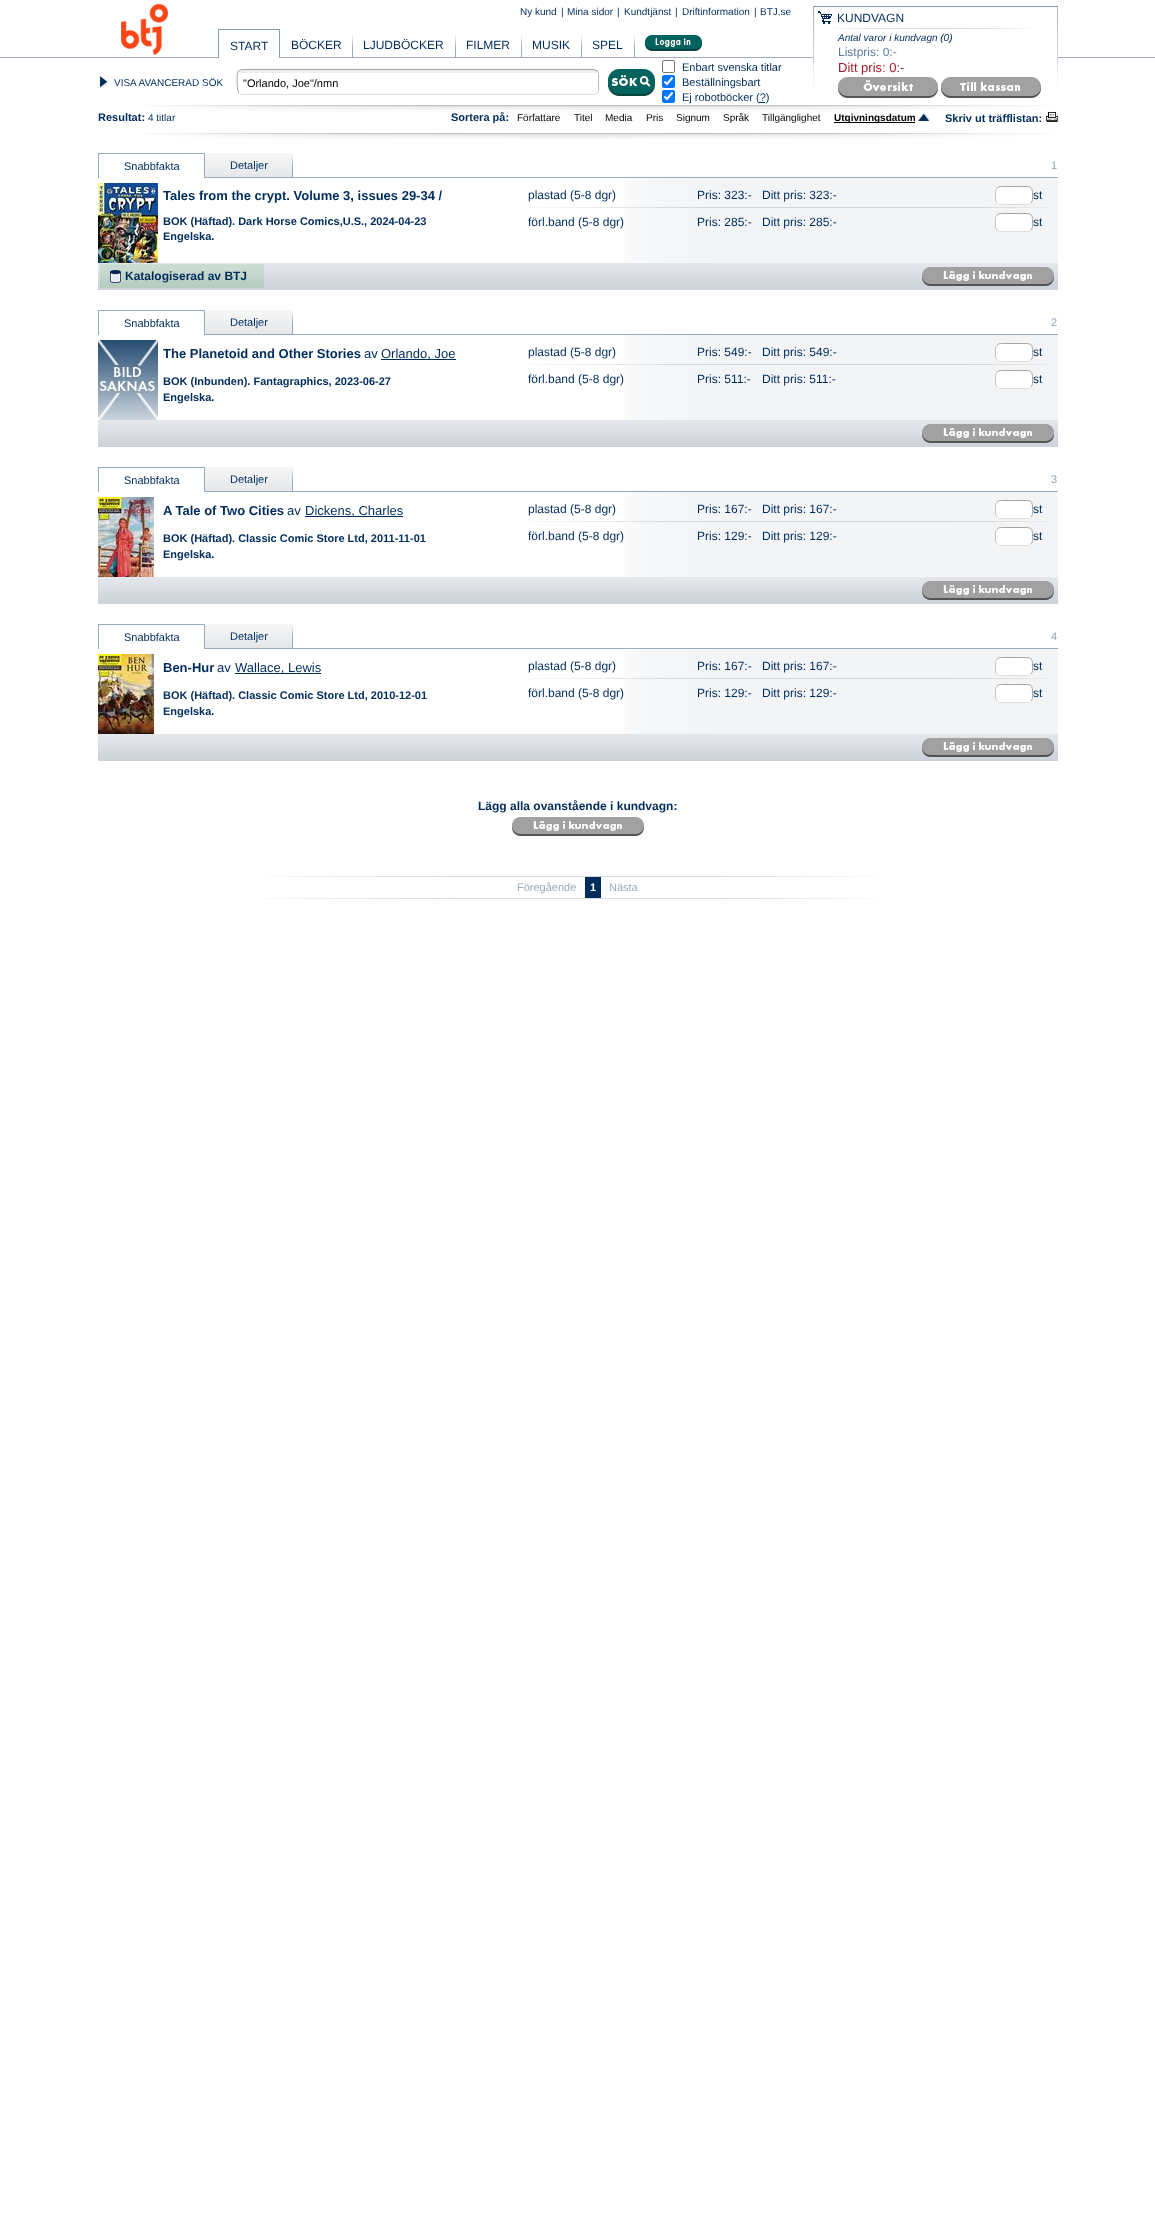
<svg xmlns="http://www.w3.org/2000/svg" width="1155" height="2226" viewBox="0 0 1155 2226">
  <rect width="100%" height="100%" fill="#ffffff"/>
  <rect x="0" y="57" width="1155" height="1" fill="#a2aeba"/>
  <image x="121" y="4" width="47" height="51" href="img1.png"/>
  <rect x="218" y="57" width="62" height="1" fill="#ffffff"/>
  <rect x="218" y="29" width="62" height="1" fill="#879cb1"/>
  <rect x="279" y="29" width="1" height="29" fill="#879cb1"/>
  <rect x="218" y="29" width="1" height="29" fill="#879cb1"/>
  <text x="230" y="50" font-family="Liberation Sans" font-size="12" fill="#002c5c">START</text>
  <text x="291" y="49" font-family="Liberation Sans" font-size="12" fill="#002c5c">BÖCKER</text>
  <image x="352" y="35" width="1" height="22" href="img2.png"/>
  <text x="363" y="49" font-family="Liberation Sans" font-size="12" fill="#002c5c">LJUDBÖCKER</text>
  <image x="455" y="35" width="1" height="22" href="img2.png"/>
  <text x="466" y="49" font-family="Liberation Sans" font-size="12" fill="#002c5c">FILMER</text>
  <image x="521" y="35" width="1" height="22" href="img2.png"/>
  <text x="532" y="49" font-family="Liberation Sans" font-size="12" fill="#002c5c">MUSIK</text>
  <image x="581" y="35" width="1" height="22" href="img2.png"/>
  <text x="592" y="49" font-family="Liberation Sans" font-size="12" fill="#002c5c">SPEL</text>
  <image x="634" y="35" width="1" height="22" href="img2.png"/>
  <image x="645" y="35" width="57" height="16" href="img3.png"/>
  <text x="520" y="15" font-family="Liberation Sans" font-size="10" fill="#002c5c">Ny kund</text>
  <text x="561" y="15" font-family="Liberation Sans" font-size="10" fill="#002c5c">|</text>
  <text x="567" y="15" font-family="Liberation Sans" font-size="10" fill="#002c5c">Mina sidor</text>
  <text x="617" y="15" font-family="Liberation Sans" font-size="10" fill="#002c5c">|</text>
  <text x="624" y="15" font-family="Liberation Sans" font-size="10" fill="#002c5c">Kundtjänst</text>
  <text x="675" y="15" font-family="Liberation Sans" font-size="10" fill="#002c5c">|</text>
  <text x="682" y="15" font-family="Liberation Sans" font-size="10" fill="#002c5c">Driftinformation</text>
  <text x="754" y="15" font-family="Liberation Sans" font-size="10" fill="#002c5c">|</text>
  <text x="760" y="15" font-family="Liberation Sans" font-size="10" fill="#002c5c">BTJ.se</text>
  <image x="813" y="7" width="245" height="80" href="img4.png"/>
  <rect x="813" y="6" width="245" height="1" fill="#879cb1"/>
  <image x="818" y="11" width="14" height="13" href="img5.png"/>
  <text x="837" y="22" font-family="Liberation Sans" font-size="12" fill="#002c5c">KUNDVAGN</text>
  <image x="834" y="28" width="199" height="1" href="img6.png"/>
  <text x="838" y="41" font-family="Liberation Sans" font-size="10" font-style="italic" fill="#002c5c">Antal varor i kundvagn (0)</text>
  <text x="838" y="56" font-family="Liberation Sans" font-size="12" fill="#5f7ba1">Listpris: 0:-</text>
  <text x="838" y="72" font-family="Liberation Sans" font-size="13" fill="#a91b2a">Ditt pris: 0:-</text>
  <image x="838" y="77" width="100" height="21" href="img7.png"/>
  <image x="941" y="77" width="100" height="21" href="img8.png"/>
  <image x="99" y="76" width="9" height="12" href="img9.png"/>
  <text x="114" y="86" font-family="Liberation Sans" font-size="10" fill="#002c5c">VISA AVANCERAD SÖK</text>
  <rect x="237" y="70" width="362" height="3" fill="#efefef"/>
  <path d="M597 71C598 71.5 598.5 73 598.5 74V90C598.5 91 598 92.5 597 93" fill="none" stroke="#bfbfbf"/>
  <path d="M597 93C596.5 94 595 94.5 594 94.5H242C241 94.5 239.5 94 239 93" fill="none" stroke="#dddddd"/>
  <path d="M239 93C236.5 91 237 75 237.5 72.5C238.5 71 240 69.5 242 69.5H594L597 71" fill="none" stroke="#a2a2a2"/>
  <text x="243" y="87" font-family="Liberation Sans" font-size="11" fill="#000000">"Orlando, Joe"/nmn</text>
  <image x="608" y="69" width="47" height="27" href="img10.png"/>
  <rect x="662.5" y="60.5" width="12" height="12" rx="1.5" fill="none" stroke="#767676"/>
  <text x="682" y="71" font-family="Liberation Sans" font-size="11" fill="#002c5c">Enbart svenska titlar</text>
  <rect x="662" y="75" width="13" height="13" rx="2" fill="#0075ff"/>
  <path d="M664.5 81.5L667 84L672.5 77.5" fill="none" stroke="#ffffff" stroke-width="2.1"/>
  <text x="682" y="86" font-family="Liberation Sans" font-size="11" fill="#002c5c">Beställningsbart</text>
  <rect x="662" y="90" width="13" height="13" rx="2" fill="#0075ff"/>
  <path d="M664.5 96.5L667 99L672.5 92.5" fill="none" stroke="#ffffff" stroke-width="2.1"/>
  <text x="682" y="101" font-family="Liberation Sans" font-size="11" fill="#002c5c">Ej robotböcker (?)</text>
  <rect x="759" y="102" width="6" height="1" fill="#002c5c"/>
  <image x="146" y="105" width="907" height="34" href="img11.png"/>
  <text x="98" y="121" font-family="Liberation Sans" font-size="11" font-weight="bold" fill="#002c5c">Resultat:</text>
  <text x="148" y="121" font-family="Liberation Sans" font-size="10" fill="#002c5c">4 titlar</text>
  <text x="451" y="121" font-family="Liberation Sans" font-size="11" font-weight="bold" fill="#002c5c">Sortera på:</text>
  <rect x="517" y="112" width="44" height="1" fill="#ffffff"/>
  <text x="517" y="121" font-family="Liberation Sans" font-size="10" fill="#000000">Författare</text>
  <rect x="574" y="112" width="18" height="1" fill="#ffffff"/>
  <text x="574" y="121" font-family="Liberation Sans" font-size="10" fill="#000000">Titel</text>
  <rect x="605" y="112" width="27" height="1" fill="#ffffff"/>
  <text x="605" y="121" font-family="Liberation Sans" font-size="10" fill="#000000">Media</text>
  <rect x="646" y="112" width="17" height="1" fill="#ffffff"/>
  <text x="646" y="121" font-family="Liberation Sans" font-size="10" fill="#000000">Pris</text>
  <rect x="676" y="112" width="5" height="1" fill="#ffffff"/>
  <text x="676" y="121" font-family="Liberation Sans" font-size="10" fill="#000000">Signum</text>
  <text x="723" y="121" font-family="Liberation Sans" font-size="10" fill="#000000">Språk</text>
  <text x="762" y="121" font-family="Liberation Sans" font-size="10" fill="#000000">Tillgänglighet</text>
  <image x="918" y="113" width="12" height="9" href="img12.png"/>
  <rect x="834" y="122" width="81" height="1" fill="#000000"/>
  <text x="834" y="121" font-family="Liberation Sans" font-size="10" font-weight="bold" fill="#000000">Utgivningsdatum</text>
  <text x="945" y="122" font-family="Liberation Sans" font-size="11" font-weight="bold" fill="#002c5c">Skriv ut träfflistan:</text>
  <image x="1046" y="112" width="12" height="10" href="img13.png"/>
  <image x="624" y="178" width="434" height="85" href="img14.png"/>
  <rect x="205" y="177" width="853" height="1" fill="#99abbe"/>
  <rect x="98" y="153" width="107" height="1" fill="#99abbe"/>
  <rect x="204" y="153" width="1" height="25" fill="#99abbe"/>
  <rect x="98" y="153" width="1" height="25" fill="#99abbe"/>
  <text x="124" y="170" font-family="Liberation Sans" font-size="11" fill="#002c5c">Snabbfakta</text>
  <image x="205" y="153" width="88" height="24" href="img15.png"/>
  <text x="230" y="169" font-family="Liberation Sans" font-size="11" fill="#002c5c">Detaljer</text>
  <text x="1051" y="169" font-family="Liberation Sans" font-size="11" fill="#92a3b5">1</text>
  <image x="98" y="183" width="60" height="80" href="img16.png"/>
  <text x="163" y="200" font-family="Liberation Sans" font-size="13" font-weight="bold" fill="#002c5c">Tales from the crypt. Volume 3, issues 29-34 /</text>
  <text x="163" y="225" font-family="Liberation Sans" font-size="11" font-weight="bold" fill="#002c5c">BOK (Häftad). Dark Horse Comics,U.S., 2024-04-23</text>
  <text x="163" y="240" font-family="Liberation Sans" font-size="11" font-weight="bold" fill="#002c5c">Engelska.</text>
  <text x="528" y="199" font-family="Liberation Sans" font-size="12" fill="#002c5c">plastad (5-8 dgr)</text>
  <text x="697" y="199" font-family="Liberation Sans" font-size="12" fill="#002c5c">Pris: 323:-</text>
  <text x="762" y="199" font-family="Liberation Sans" font-size="12" fill="#002c5c">Ditt pris: 323:-</text>
  <rect x="995" y="186" width="38" height="19" rx="5" fill="#ffffff"/>
  <path d="M997 188C999 186 1002 186.5 1004.5 186.5H1023.5C1032 186.5 1032.5 187 1032.5 195.5C1032.5 198 1033 201 1031 203" fill="none" stroke="#a2a2a2"/>
  <path d="M1031 203C1030.5 204 1029 204.5 1028 204.5H1000C999 204.5 997.5 204 997 203" fill="none" stroke="#dddddd"/>
  <path d="M997 203C995 201 995.5 198 995.5 195.5C995.5 193 995 190 997 188" fill="none" stroke="#bfbfbf"/>
  <text x="1033" y="199" font-family="Liberation Sans" font-size="12" fill="#002c5c">st</text>
  <image x="529" y="207" width="519" height="1" href="img17.png"/>
  <text x="528" y="226" font-family="Liberation Sans" font-size="12" fill="#002c5c">förl.band (5-8 dgr)</text>
  <text x="697" y="226" font-family="Liberation Sans" font-size="12" fill="#002c5c">Pris: 285:-</text>
  <text x="762" y="226" font-family="Liberation Sans" font-size="12" fill="#002c5c">Ditt pris: 285:-</text>
  <rect x="995" y="213" width="38" height="19" rx="5" fill="#ffffff"/>
  <path d="M997 215C999 213 1002 213.5 1004.5 213.5H1023.5C1032 213.5 1032.5 214 1032.5 222.5C1032.5 225 1033 228 1031 230" fill="none" stroke="#a2a2a2"/>
  <path d="M1031 230C1030.5 231 1029 231.5 1028 231.5H1000C999 231.5 997.5 231 997 230" fill="none" stroke="#dddddd"/>
  <path d="M997 230C995 228 995.5 225 995.5 222.5C995.5 220 995 217 997 215" fill="none" stroke="#bfbfbf"/>
  <text x="1033" y="226" font-family="Liberation Sans" font-size="12" fill="#002c5c">st</text>
  <image x="98" y="263" width="960" height="27" href="img18.png"/>
  <image x="100" y="264" width="164" height="24" href="img19.png"/>
  <image x="110" y="270" width="11" height="13" href="img20.png"/>
  <text x="125" y="280" font-family="Liberation Sans" font-size="12" font-weight="bold" fill="#002c5c">Katalogiserad av BTJ</text>
  <image x="922" y="267" width="132" height="19" href="img21.png"/>
  <image x="624" y="335" width="434" height="85" href="img14.png"/>
  <rect x="205" y="334" width="853" height="1" fill="#99abbe"/>
  <rect x="98" y="310" width="107" height="1" fill="#99abbe"/>
  <rect x="204" y="310" width="1" height="25" fill="#99abbe"/>
  <rect x="98" y="310" width="1" height="25" fill="#99abbe"/>
  <text x="124" y="327" font-family="Liberation Sans" font-size="11" fill="#002c5c">Snabbfakta</text>
  <image x="205" y="310" width="88" height="24" href="img15.png"/>
  <text x="230" y="326" font-family="Liberation Sans" font-size="11" fill="#002c5c">Detaljer</text>
  <text x="1051" y="326" font-family="Liberation Sans" font-size="11" fill="#92a3b5">2</text>
  <image x="98" y="340" width="60" height="80" href="img22.png"/>
  <text x="163" y="358" font-family="Liberation Sans" font-size="13" font-weight="bold" fill="#002c5c">The Planetoid and Other Stories</text>
  <text x="364" y="358" font-family="Liberation Sans" font-size="13" fill="#002c5c">av</text>
  <rect x="381" y="359" width="75" height="1" fill="#002c5c"/>
  <text x="381" y="358" font-family="Liberation Sans" font-size="13" fill="#002c5c">Orlando, Joe</text>
  <text x="163" y="385" font-family="Liberation Sans" font-size="11" font-weight="bold" fill="#002c5c">BOK (Inbunden). Fantagraphics, 2023-06-27</text>
  <text x="163" y="401" font-family="Liberation Sans" font-size="11" font-weight="bold" fill="#002c5c">Engelska.</text>
  <text x="528" y="356" font-family="Liberation Sans" font-size="12" fill="#002c5c">plastad (5-8 dgr)</text>
  <text x="697" y="356" font-family="Liberation Sans" font-size="12" fill="#002c5c">Pris: 549:-</text>
  <text x="762" y="356" font-family="Liberation Sans" font-size="12" fill="#002c5c">Ditt pris: 549:-</text>
  <rect x="995" y="343" width="38" height="19" rx="5" fill="#ffffff"/>
  <path d="M997 345C999 343 1002 343.5 1004.5 343.5H1023.5C1032 343.5 1032.5 344 1032.5 352.5C1032.5 355 1033 358 1031 360" fill="none" stroke="#a2a2a2"/>
  <path d="M1031 360C1030.5 361 1029 361.5 1028 361.5H1000C999 361.5 997.5 361 997 360" fill="none" stroke="#dddddd"/>
  <path d="M997 360C995 358 995.5 355 995.5 352.5C995.5 350 995 347 997 345" fill="none" stroke="#bfbfbf"/>
  <text x="1033" y="356" font-family="Liberation Sans" font-size="12" fill="#002c5c">st</text>
  <image x="529" y="364" width="519" height="1" href="img17.png"/>
  <text x="528" y="383" font-family="Liberation Sans" font-size="12" fill="#002c5c">förl.band (5-8 dgr)</text>
  <text x="697" y="383" font-family="Liberation Sans" font-size="12" fill="#002c5c">Pris: 511:-</text>
  <text x="762" y="383" font-family="Liberation Sans" font-size="12" fill="#002c5c">Ditt pris: 511:-</text>
  <rect x="995" y="370" width="38" height="19" rx="5" fill="#ffffff"/>
  <path d="M997 372C999 370 1002 370.5 1004.5 370.5H1023.5C1032 370.5 1032.5 371 1032.5 379.5C1032.5 382 1033 385 1031 387" fill="none" stroke="#a2a2a2"/>
  <path d="M1031 387C1030.5 388 1029 388.5 1028 388.5H1000C999 388.5 997.5 388 997 387" fill="none" stroke="#dddddd"/>
  <path d="M997 387C995 385 995.5 382 995.5 379.5C995.5 377 995 374 997 372" fill="none" stroke="#bfbfbf"/>
  <text x="1033" y="383" font-family="Liberation Sans" font-size="12" fill="#002c5c">st</text>
  <image x="98" y="420" width="960" height="27" href="img18.png"/>
  <image x="922" y="424" width="132" height="19" href="img21.png"/>
  <image x="624" y="492" width="434" height="85" href="img14.png"/>
  <rect x="205" y="491" width="853" height="1" fill="#99abbe"/>
  <rect x="98" y="467" width="107" height="1" fill="#99abbe"/>
  <rect x="204" y="467" width="1" height="25" fill="#99abbe"/>
  <rect x="98" y="467" width="1" height="25" fill="#99abbe"/>
  <text x="124" y="484" font-family="Liberation Sans" font-size="11" fill="#002c5c">Snabbfakta</text>
  <image x="205" y="467" width="88" height="24" href="img15.png"/>
  <text x="230" y="483" font-family="Liberation Sans" font-size="11" fill="#002c5c">Detaljer</text>
  <text x="1051" y="483" font-family="Liberation Sans" font-size="11" fill="#92a3b5">3</text>
  <image x="98" y="497" width="56" height="80" href="img23.png"/>
  <text x="163" y="515" font-family="Liberation Sans" font-size="13" font-weight="bold" fill="#002c5c">A Tale of Two Cities</text>
  <text x="287" y="515" font-family="Liberation Sans" font-size="13" fill="#002c5c">av</text>
  <rect x="305" y="516" width="98" height="1" fill="#002c5c"/>
  <text x="305" y="515" font-family="Liberation Sans" font-size="13" fill="#002c5c">Dickens, Charles</text>
  <text x="163" y="542" font-family="Liberation Sans" font-size="11" font-weight="bold" fill="#002c5c">BOK (Häftad). Classic Comic Store Ltd, 2011-11-01</text>
  <text x="163" y="558" font-family="Liberation Sans" font-size="11" font-weight="bold" fill="#002c5c">Engelska.</text>
  <text x="528" y="513" font-family="Liberation Sans" font-size="12" fill="#002c5c">plastad (5-8 dgr)</text>
  <text x="697" y="513" font-family="Liberation Sans" font-size="12" fill="#002c5c">Pris: 167:-</text>
  <text x="762" y="513" font-family="Liberation Sans" font-size="12" fill="#002c5c">Ditt pris: 167:-</text>
  <rect x="995" y="500" width="38" height="19" rx="5" fill="#ffffff"/>
  <path d="M997 502C999 500 1002 500.5 1004.5 500.5H1023.5C1032 500.5 1032.5 501 1032.5 509.5C1032.5 512 1033 515 1031 517" fill="none" stroke="#a2a2a2"/>
  <path d="M1031 517C1030.5 518 1029 518.5 1028 518.5H1000C999 518.5 997.5 518 997 517" fill="none" stroke="#dddddd"/>
  <path d="M997 517C995 515 995.5 512 995.5 509.5C995.5 507 995 504 997 502" fill="none" stroke="#bfbfbf"/>
  <text x="1033" y="513" font-family="Liberation Sans" font-size="12" fill="#002c5c">st</text>
  <image x="529" y="521" width="519" height="1" href="img17.png"/>
  <text x="528" y="540" font-family="Liberation Sans" font-size="12" fill="#002c5c">förl.band (5-8 dgr)</text>
  <text x="697" y="540" font-family="Liberation Sans" font-size="12" fill="#002c5c">Pris: 129:-</text>
  <text x="762" y="540" font-family="Liberation Sans" font-size="12" fill="#002c5c">Ditt pris: 129:-</text>
  <rect x="995" y="527" width="38" height="19" rx="5" fill="#ffffff"/>
  <path d="M997 529C999 527 1002 527.5 1004.5 527.5H1023.5C1032 527.5 1032.5 528 1032.5 536.5C1032.5 539 1033 542 1031 544" fill="none" stroke="#a2a2a2"/>
  <path d="M1031 544C1030.5 545 1029 545.5 1028 545.5H1000C999 545.5 997.5 545 997 544" fill="none" stroke="#dddddd"/>
  <path d="M997 544C995 542 995.5 539 995.5 536.5C995.5 534 995 531 997 529" fill="none" stroke="#bfbfbf"/>
  <text x="1033" y="540" font-family="Liberation Sans" font-size="12" fill="#002c5c">st</text>
  <image x="98" y="577" width="960" height="27" href="img18.png"/>
  <image x="922" y="581" width="132" height="19" href="img21.png"/>
  <image x="624" y="649" width="434" height="85" href="img14.png"/>
  <rect x="205" y="648" width="853" height="1" fill="#99abbe"/>
  <rect x="98" y="624" width="107" height="1" fill="#99abbe"/>
  <rect x="204" y="624" width="1" height="25" fill="#99abbe"/>
  <rect x="98" y="624" width="1" height="25" fill="#99abbe"/>
  <text x="124" y="641" font-family="Liberation Sans" font-size="11" fill="#002c5c">Snabbfakta</text>
  <image x="205" y="624" width="88" height="24" href="img15.png"/>
  <text x="230" y="640" font-family="Liberation Sans" font-size="11" fill="#002c5c">Detaljer</text>
  <text x="1051" y="640" font-family="Liberation Sans" font-size="11" fill="#92a3b5">4</text>
  <image x="98" y="654" width="56" height="80" href="img24.png"/>
  <text x="163" y="672" font-family="Liberation Sans" font-size="13" font-weight="bold" fill="#002c5c">Ben-Hur</text>
  <text x="217" y="672" font-family="Liberation Sans" font-size="13" fill="#002c5c">av</text>
  <rect x="235" y="673" width="86" height="1" fill="#002c5c"/>
  <text x="235" y="672" font-family="Liberation Sans" font-size="13" fill="#002c5c">Wallace, Lewis</text>
  <text x="163" y="699" font-family="Liberation Sans" font-size="11" font-weight="bold" fill="#002c5c">BOK (Häftad). Classic Comic Store Ltd, 2010-12-01</text>
  <text x="163" y="715" font-family="Liberation Sans" font-size="11" font-weight="bold" fill="#002c5c">Engelska.</text>
  <text x="528" y="670" font-family="Liberation Sans" font-size="12" fill="#002c5c">plastad (5-8 dgr)</text>
  <text x="697" y="670" font-family="Liberation Sans" font-size="12" fill="#002c5c">Pris: 167:-</text>
  <text x="762" y="670" font-family="Liberation Sans" font-size="12" fill="#002c5c">Ditt pris: 167:-</text>
  <rect x="995" y="657" width="38" height="19" rx="5" fill="#ffffff"/>
  <path d="M997 659C999 657 1002 657.5 1004.5 657.5H1023.5C1032 657.5 1032.5 658 1032.5 666.5C1032.5 669 1033 672 1031 674" fill="none" stroke="#a2a2a2"/>
  <path d="M1031 674C1030.5 675 1029 675.5 1028 675.5H1000C999 675.5 997.5 675 997 674" fill="none" stroke="#dddddd"/>
  <path d="M997 674C995 672 995.5 669 995.5 666.5C995.5 664 995 661 997 659" fill="none" stroke="#bfbfbf"/>
  <text x="1033" y="670" font-family="Liberation Sans" font-size="12" fill="#002c5c">st</text>
  <image x="529" y="678" width="519" height="1" href="img17.png"/>
  <text x="528" y="697" font-family="Liberation Sans" font-size="12" fill="#002c5c">förl.band (5-8 dgr)</text>
  <text x="697" y="697" font-family="Liberation Sans" font-size="12" fill="#002c5c">Pris: 129:-</text>
  <text x="762" y="697" font-family="Liberation Sans" font-size="12" fill="#002c5c">Ditt pris: 129:-</text>
  <rect x="995" y="684" width="38" height="19" rx="5" fill="#ffffff"/>
  <path d="M997 686C999 684 1002 684.5 1004.5 684.5H1023.5C1032 684.5 1032.5 685 1032.5 693.5C1032.5 696 1033 699 1031 701" fill="none" stroke="#a2a2a2"/>
  <path d="M1031 701C1030.5 702 1029 702.5 1028 702.5H1000C999 702.5 997.5 702 997 701" fill="none" stroke="#dddddd"/>
  <path d="M997 701C995 699 995.5 696 995.5 693.5C995.5 691 995 688 997 686" fill="none" stroke="#bfbfbf"/>
  <text x="1033" y="697" font-family="Liberation Sans" font-size="12" fill="#002c5c">st</text>
  <image x="98" y="734" width="960" height="27" href="img18.png"/>
  <image x="922" y="738" width="132" height="19" href="img21.png"/>
  <text x="478" y="810" font-family="Liberation Sans" font-size="12" font-weight="bold" fill="#002c5c">Lägg alla ovanstående i kundvagn:</text>
  <image x="512" y="817" width="132" height="19" href="img25.png"/>
  <image x="262" y="876" width="622" height="1" href="img26.png"/>
  <text x="517" y="891" font-family="Liberation Sans" font-size="11" fill="#97acbe">Föregående</text>
  <rect x="585" y="877" width="16" height="21" fill="#002c5c"/>
  <text x="590" y="891" font-family="Liberation Sans" font-size="11" font-weight="bold" fill="#ffffff">1</text>
  <text x="609" y="891" font-family="Liberation Sans" font-size="11" fill="#97acbe">Nästa</text>
  <image x="262" y="898" width="622" height="1" href="img26.png"/>
</svg>
